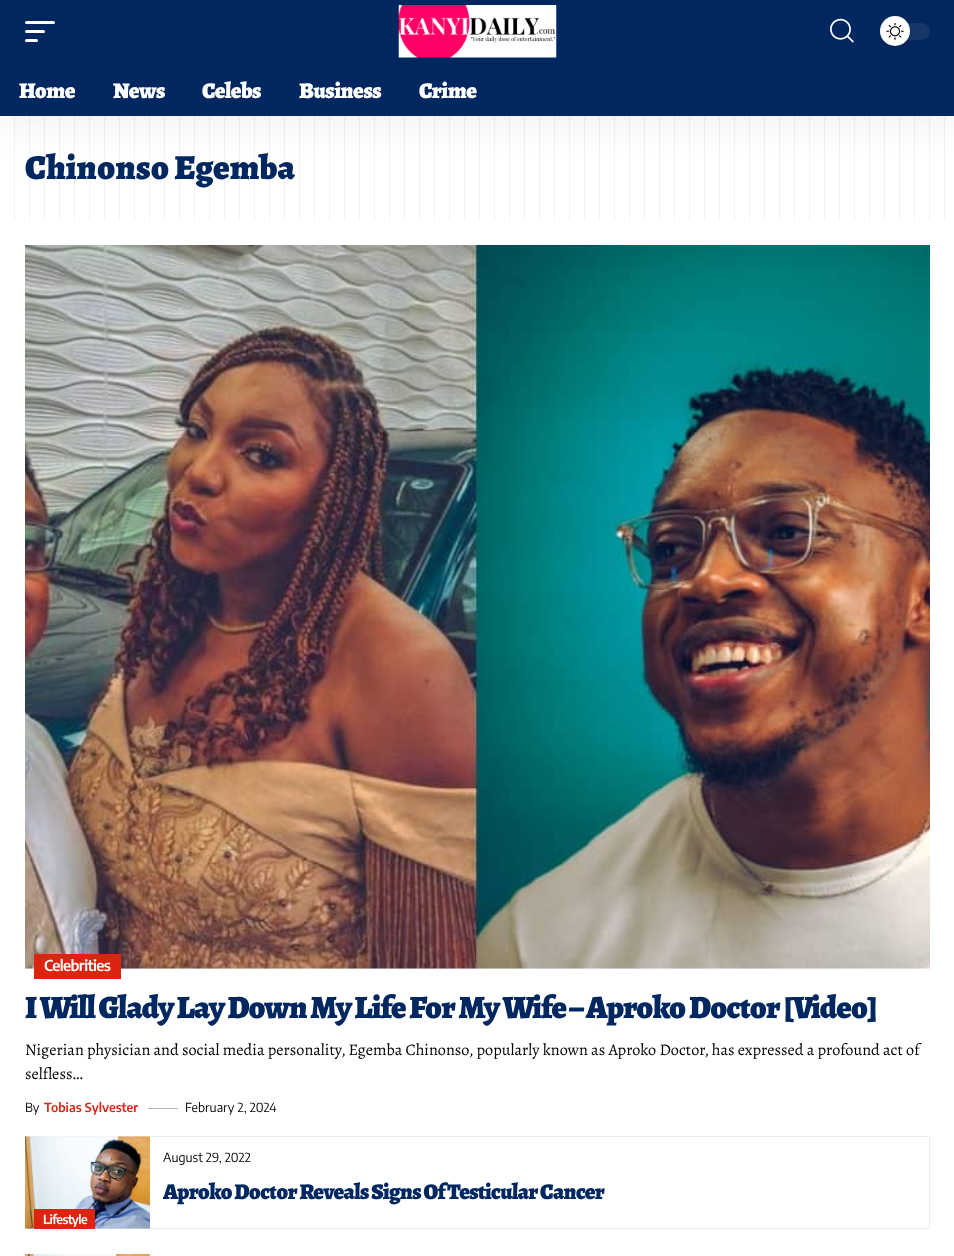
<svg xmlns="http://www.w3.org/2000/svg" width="954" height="1256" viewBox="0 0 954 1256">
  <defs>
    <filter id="blur1" x="-50%" y="-200%" width="200%" height="500%"><feGaussianBlur stdDeviation="19"/></filter>
    <filter id="blur2" x="-50%" y="-200%" width="200%" height="500%"><feGaussianBlur stdDeviation="2.5"/></filter>
  </defs>
  <rect width="100%" height="100%" fill="#ffffff"/>
  <text x="25" y="179" font-family="Alegreya" font-size="35" font-weight="900" fill="#012761">Chinonso Egemba</text>
  <image x="14" y="116" width="931" height="104" href="img4.png"/>
  <rect x="0" y="5" width="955" height="116" fill="#000000" fill-opacity="0.07" filter="url(#blur1)"/>
  <rect x="0" y="0" width="954" height="116" fill="#012761"/>
  <rect x="25" y="21" width="30" height="3" rx="1.5" fill="#ffffff"/>
  <rect x="25" y="30" width="20" height="3" rx="1.5" fill="#ffffff"/>
  <rect x="25" y="39" width="13" height="3" rx="1.5" fill="#ffffff"/>
  <image x="398" y="5" width="159" height="53" href="img1.png"/>
  <image x="830" y="18" width="24" height="25" href="img2.png"/>
  <rect x="866" y="23" width="1" height="17" fill="#012459"/>
  <rect x="880" y="23" width="50" height="17" rx="8.5" fill="#153667"/>
  <rect x="880" y="18" width="30" height="30" rx="15" fill="#000000" fill-opacity="0.12" filter="url(#blur2)"/>
  <circle cx="895" cy="31" r="15" fill="#ffffff"/>
  <image x="886" y="23" width="18" height="17" href="img3.png"/>
  <rect x="0" y="63" width="954" height="1" fill="#012459"/>
  <text x="19" y="98" font-family="Alegreya" font-size="22.5" font-weight="900" letter-spacing="-0.5" fill="#ffffff">Home</text>
  <text x="113" y="98" font-family="Alegreya" font-size="22.5" font-weight="900" letter-spacing="-0.5" fill="#ffffff">News</text>
  <text x="202" y="98" font-family="Alegreya" font-size="22.5" font-weight="900" letter-spacing="-0.5" fill="#ffffff">Celebs</text>
  <text x="299" y="98" font-family="Alegreya" font-size="22.5" font-weight="900" letter-spacing="-0.5" fill="#ffffff">Business</text>
  <text x="419" y="98" font-family="Alegreya" font-size="22.5" font-weight="900" letter-spacing="-0.5" fill="#ffffff">Crime</text>
  <image x="25" y="245" width="905" height="724" href="img5.png"/>
  <rect x="34" y="954" width="87" height="25" fill="#db2511"/>
  <text x="44" y="971" font-family="Encode Sans Condensed" font-size="15" font-weight="600" letter-spacing="-0.6" fill="#ffffff">Celebrities</text>
  <text x="25" y="1018" font-family="Alegreya" font-size="32.5" font-weight="900" letter-spacing="-0.98" fill="#012761">I Will Glady Lay Down My Life For My Wife – Aproko Doctor [Video]</text>
  <text x="25" y="1055" font-family="Alegreya" font-size="16.25" fill="#000000">Nigerian physician and social media personality, Egemba Chinonso, popularly known as Aproko Doctor, has expressed a profound act of</text>
  <text x="25" y="1079" font-family="Alegreya" font-size="16.25" fill="#000000">selfless…</text>
  <text x="25" y="1112" font-family="Encode Sans Condensed" font-size="12.5" fill="#000000">By</text>
  <text x="44" y="1112" font-family="Encode Sans Condensed" font-size="12.5" font-weight="600" fill="#db2511">Tobias Sylvester</text>
  <rect x="148" y="1108" width="30" height="1" fill="#b3b3b3"/>
  <text x="185" y="1112" font-family="Encode Sans Condensed" font-size="12.5" fill="#000000">February 2, 2024</text>
  <rect x="25.5" y="1136.5" width="904" height="92" fill="none" stroke="#ededed"/>
  <text x="163" y="1162" font-family="Encode Sans Condensed" font-size="12.5" fill="#000000">August 29, 2022</text>
  <text x="163" y="1199" font-family="Alegreya" font-size="22.5" font-weight="900" letter-spacing="-0.7" fill="#012761">Aproko Doctor Reveals Signs Of Testicular Cancer</text>
  <image x="25" y="1136" width="125" height="93" href="img6.png"/>
  <rect x="34" y="1209" width="61" height="20" fill="#db2511"/>
  <text x="43" y="1224" font-family="Encode Sans Condensed" font-size="12.5" font-weight="600" letter-spacing="-0.6" fill="#ffffff">Lifestyle</text>
  <image x="25" y="1253" width="125" height="3" href="img7.png"/>
</svg>
